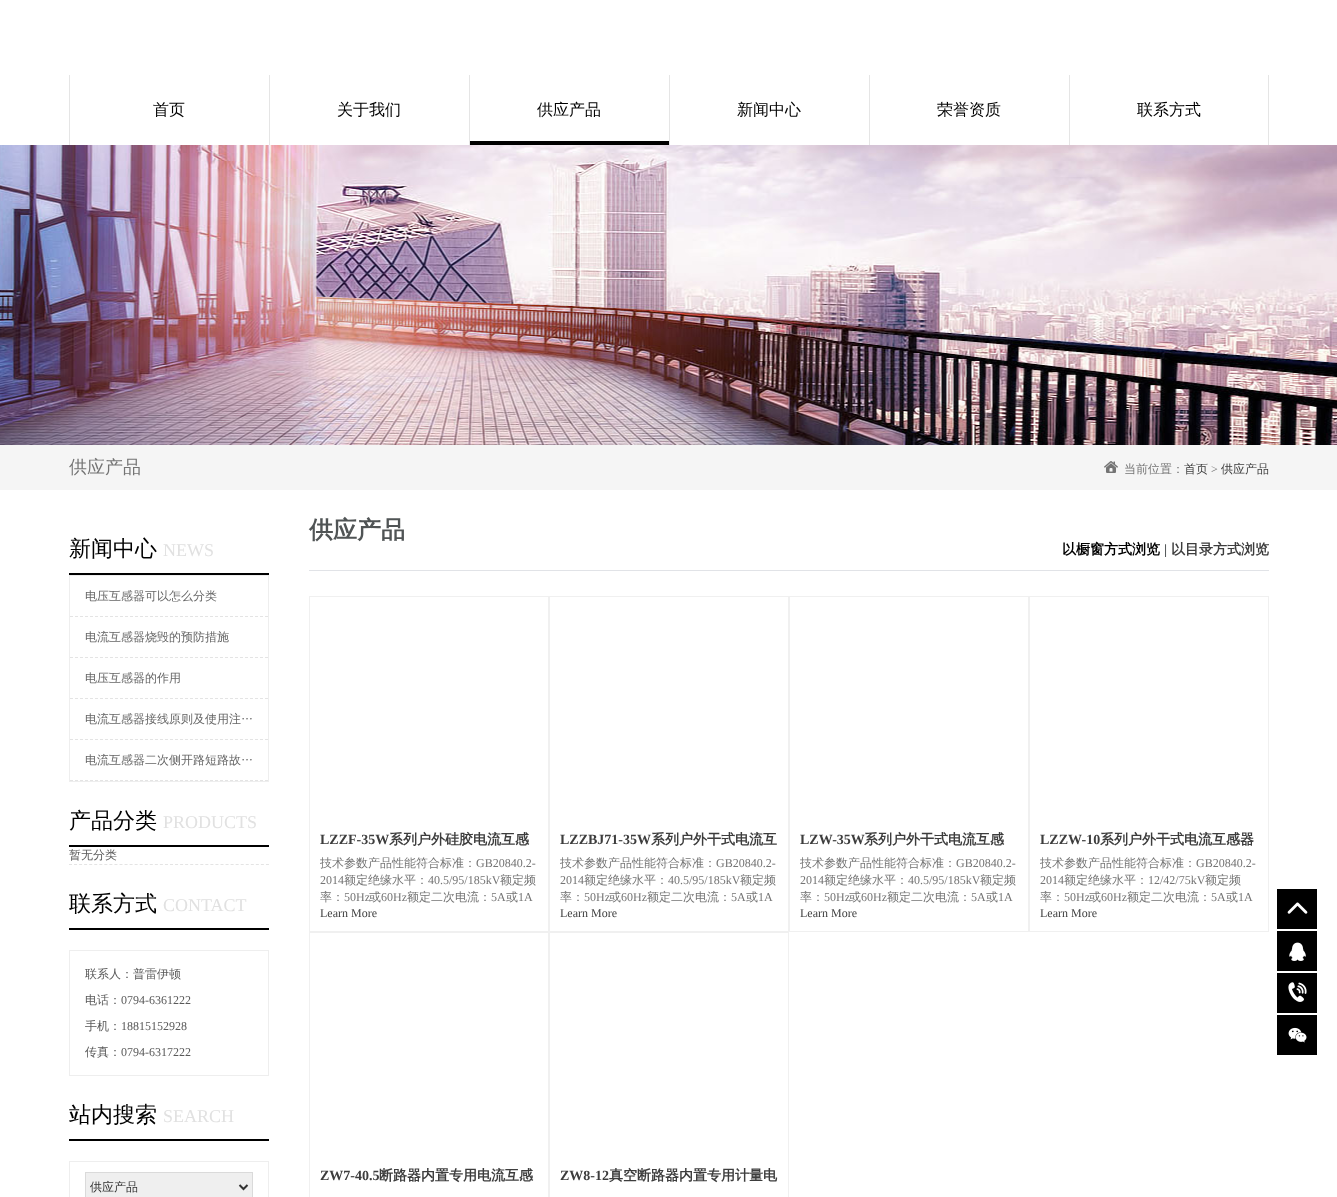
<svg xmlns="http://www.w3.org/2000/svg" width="1337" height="1197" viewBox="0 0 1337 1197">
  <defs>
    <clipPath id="clip1"><rect x="320" y="855" width="218" height="51"/></clipPath>
    <clipPath id="clip2"><rect x="560" y="855" width="218" height="51"/></clipPath>
    <clipPath id="clip3"><rect x="800" y="855" width="218" height="51"/></clipPath>
    <clipPath id="clip4"><rect x="1040" y="855" width="218" height="51"/></clipPath>
  </defs>
  <rect width="100%" height="100%" fill="#ffffff"/>
  <rect x="69" y="75" width="1" height="70" fill="#e5e5e5"/>
  <text x="153" y="115" font-family="WenQuanYi Zen Hei" font-size="16" font-weight="500" fill="#000000">首页</text>
  <rect x="269" y="75" width="1" height="70" fill="#e5e5e5"/>
  <text x="337" y="115" font-family="WenQuanYi Zen Hei" font-size="16" font-weight="500" fill="#000000">关于我们</text>
  <rect x="469" y="75" width="1" height="70" fill="#e5e5e5"/>
  <text x="537" y="115" font-family="WenQuanYi Zen Hei" font-size="16" font-weight="500" fill="#000000">供应产品</text>
  <rect x="470" y="141" width="199" height="4" fill="#000000"/>
  <rect x="669" y="75" width="1" height="70" fill="#e5e5e5"/>
  <text x="737" y="115" font-family="WenQuanYi Zen Hei" font-size="16" font-weight="500" fill="#000000">新闻中心</text>
  <rect x="869" y="75" width="1" height="70" fill="#e5e5e5"/>
  <text x="937" y="115" font-family="WenQuanYi Zen Hei" font-size="16" font-weight="500" fill="#000000">荣誉资质</text>
  <rect x="1268" y="75" width="1" height="70" fill="#e5e5e5"/>
  <rect x="1069" y="75" width="1" height="70" fill="#e5e5e5"/>
  <text x="1137" y="115" font-family="WenQuanYi Zen Hei" font-size="16" font-weight="500" fill="#000000">联系方式</text>
  <image x="0" y="145" width="1337" height="300" href="img1.png"/>
  <rect x="0" y="445" width="1337" height="45" fill="#f5f5f5"/>
  <text x="69" y="473" font-family="WenQuanYi Zen Hei" font-size="18" font-weight="500" fill="#747474">供应产品</text>
  <image x="1104" y="461" width="14" height="12" href="img2.png"/>
  <text x="1124" y="473" font-family="WenQuanYi Zen Hei" font-size="12" font-weight="500" fill="#747474">当前位置：</text>
  <text x="1184" y="473" font-family="WenQuanYi Zen Hei" font-size="12" font-weight="500" fill="#3d3d3d">首页</text>
  <text x="1211" y="473" font-family="Liberation Serif" font-size="12" fill="#747474">&gt;</text>
  <text x="1221" y="473" font-family="WenQuanYi Zen Hei" font-size="12" font-weight="500" fill="#3d3d3d">供应产品</text>
  <rect x="69" y="573" width="200" height="2" fill="#000000"/>
  <text x="69" y="556" font-family="WenQuanYi Zen Hei" font-size="22" font-weight="500" fill="#000000">新闻中心</text>
  <text x="163" y="556" font-family="Liberation Serif" font-size="18" fill="#e1e1e1">NEWS</text>
  <rect x="69.5" y="575.5" width="199" height="206" fill="none" stroke="#eeeeee"/>
  <path d="M70 616.5H268" fill="none" stroke="#e4e4e4" stroke-dasharray="3 2"/>
  <text x="85" y="600" font-family="WenQuanYi Zen Hei" font-size="12" font-weight="500" fill="#666666">电压互感器可以怎么分类</text>
  <path d="M70 657.5H268" fill="none" stroke="#e4e4e4" stroke-dasharray="3 2"/>
  <text x="85" y="641" font-family="WenQuanYi Zen Hei" font-size="12" font-weight="500" fill="#666666">电流互感器烧毁的预防措施</text>
  <path d="M70 698.5H268" fill="none" stroke="#e4e4e4" stroke-dasharray="3 2"/>
  <text x="85" y="682" font-family="WenQuanYi Zen Hei" font-size="12" font-weight="500" fill="#666666">电压互感器的作用</text>
  <path d="M70 739.5H268" fill="none" stroke="#e4e4e4" stroke-dasharray="3 2"/>
  <text x="85" y="723" font-family="WenQuanYi Zen Hei" font-size="12" font-weight="500" fill="#666666">电流互感器接线原则及使用注…</text>
  <path d="M70 780.5H268" fill="none" stroke="#e4e4e4" stroke-dasharray="3 2"/>
  <text x="85" y="764" font-family="WenQuanYi Zen Hei" font-size="12" font-weight="500" fill="#666666">电流互感器二次侧开路短路故…</text>
  <rect x="69" y="845" width="200" height="2" fill="#000000"/>
  <text x="69" y="828" font-family="WenQuanYi Zen Hei" font-size="22" font-weight="500" fill="#000000">产品分类</text>
  <text x="163" y="828" font-family="Liberation Serif" font-size="18" fill="#e1e1e1">PRODUCTS</text>
  <path d="M69 864.5H269" fill="none" stroke="#e4e4e4" stroke-dasharray="3 2.05"/>
  <text x="69" y="859" font-family="WenQuanYi Zen Hei" font-size="12" font-weight="500" fill="#595959">暂无分类</text>
  <rect x="69" y="928" width="200" height="2" fill="#000000"/>
  <text x="69" y="911" font-family="WenQuanYi Zen Hei" font-size="22" font-weight="500" fill="#000000">联系方式</text>
  <text x="163" y="911" font-family="Liberation Serif" font-size="18" fill="#e1e1e1">CONTACT</text>
  <rect x="69.5" y="950.5" width="199" height="125" fill="none" stroke="#eeeeee"/>
  <text x="85" y="978" font-family="WenQuanYi Zen Hei" font-size="12" font-weight="500" fill="#595959">联系人：普雷伊顿</text>
  <text x="85" y="1004" font-family="WenQuanYi Zen Hei" font-size="12" font-weight="500" fill="#595959">电话：</text>
  <text x="121" y="1004" font-family="Liberation Serif" font-size="12" fill="#595959">0794-6361222</text>
  <text x="85" y="1030" font-family="WenQuanYi Zen Hei" font-size="12" font-weight="500" fill="#595959">手机：</text>
  <text x="121" y="1030" font-family="Liberation Serif" font-size="12" fill="#595959">18815152928</text>
  <text x="85" y="1056" font-family="WenQuanYi Zen Hei" font-size="12" font-weight="500" fill="#595959">传真：</text>
  <text x="121" y="1056" font-family="Liberation Serif" font-size="12" fill="#595959">0794-6317222</text>
  <rect x="69" y="1139" width="200" height="2" fill="#000000"/>
  <text x="69" y="1122" font-family="WenQuanYi Zen Hei" font-size="22" font-weight="500" fill="#000000">站内搜索</text>
  <text x="163" y="1122" font-family="Liberation Serif" font-size="18" fill="#e1e1e1">SEARCH</text>
  <rect x="69.5" y="1161.5" width="199" height="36" fill="none" stroke="#eeeeee"/>
  <rect x="85.5" y="1172.5" width="167" height="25" fill="#efefef" stroke="#dadada"/>
  <path d="M239.5 1185L243.5 1189L247.5 1185" fill="none" stroke="#333333" stroke-width="2"/>
  <text x="90" y="1191" font-family="WenQuanYi Zen Hei" font-size="12" font-weight="500" fill="#333333">供应产品</text>
  <rect x="309" y="570" width="960" height="1" fill="#e1e3e7"/>
  <text x="309" y="538" font-family="WenQuanYi Zen Hei" font-size="24" font-weight="bold" fill="#505455">供应产品</text>
  <text x="1062" y="554" font-family="WenQuanYi Zen Hei" font-size="14" font-weight="bold" fill="#000000">以橱窗方式浏览</text>
  <text x="1164" y="554" font-family="Liberation Serif" font-size="14" font-weight="bold" fill="#505455">|</text>
  <text x="1171" y="554" font-family="WenQuanYi Zen Hei" font-size="14" font-weight="bold" fill="#3d3d3d">以目录方式浏览</text>
  <rect x="309.5" y="596.5" width="239" height="335" fill="none" stroke="#f0f0f0"/>
  <text x="320" y="844" font-family="Liberation Serif" font-size="14" font-weight="bold" fill="#3d3d3d">LZZF-35W</text>
  <text x="389" y="844" font-family="WenQuanYi Zen Hei" font-size="14" font-weight="bold" fill="#3d3d3d">系列户外硅胶电流互感</text>
  <g clip-path="url(#clip1)">
    <text x="320" y="867" font-family="WenQuanYi Zen Hei" font-size="12" font-weight="500" fill="#747474">技术参数产品性能符合标准：</text>
  </g>
  <text x="476" y="867" font-family="Liberation Serif" font-size="12" fill="#747474">GB20840.2-</text>
  <text x="320" y="884" font-family="Liberation Serif" font-size="12" fill="#747474">2014</text>
  <text x="344" y="884" font-family="WenQuanYi Zen Hei" font-size="12" font-weight="500" fill="#747474">额定绝缘水平：</text>
  <text x="428" y="884" font-family="Liberation Serif" font-size="12" fill="#747474">40.5/95/185kV</text>
  <text x="500" y="884" font-family="WenQuanYi Zen Hei" font-size="12" font-weight="500" fill="#747474">额定频</text>
  <text x="320" y="901" font-family="WenQuanYi Zen Hei" font-size="12" font-weight="500" fill="#747474">率：</text>
  <text x="344" y="901" font-family="Liberation Serif" font-size="12" fill="#747474">50Hz</text>
  <text x="369" y="901" font-family="WenQuanYi Zen Hei" font-size="12" font-weight="500" fill="#747474">或</text>
  <text x="381" y="901" font-family="Liberation Serif" font-size="12" fill="#747474">60Hz</text>
  <text x="407" y="901" font-family="WenQuanYi Zen Hei" font-size="12" font-weight="500" fill="#747474">额定二次电流：</text>
  <text x="491" y="901" font-family="Liberation Serif" font-size="12" fill="#747474">5A</text>
  <text x="506" y="901" font-family="WenQuanYi Zen Hei" font-size="12" font-weight="500" fill="#747474">或</text>
  <text x="518" y="901" font-family="Liberation Serif" font-size="12" fill="#747474">1A</text>
  <text x="320" y="917" font-family="Liberation Serif" font-size="12" fill="#3d3d3d">Learn More</text>
  <rect x="549.5" y="596.5" width="239" height="335" fill="none" stroke="#f0f0f0"/>
  <text x="560" y="844" font-family="Liberation Serif" font-size="14" font-weight="bold" fill="#3d3d3d">LZZBJ71-35W</text>
  <text x="651" y="844" font-family="WenQuanYi Zen Hei" font-size="14" font-weight="bold" fill="#3d3d3d">系列户外干式电流互</text>
  <g clip-path="url(#clip2)">
    <text x="560" y="867" font-family="WenQuanYi Zen Hei" font-size="12" font-weight="500" fill="#747474">技术参数产品性能符合标准：</text>
  </g>
  <text x="716" y="867" font-family="Liberation Serif" font-size="12" fill="#747474">GB20840.2-</text>
  <text x="560" y="884" font-family="Liberation Serif" font-size="12" fill="#747474">2014</text>
  <text x="584" y="884" font-family="WenQuanYi Zen Hei" font-size="12" font-weight="500" fill="#747474">额定绝缘水平：</text>
  <text x="668" y="884" font-family="Liberation Serif" font-size="12" fill="#747474">40.5/95/185kV</text>
  <text x="740" y="884" font-family="WenQuanYi Zen Hei" font-size="12" font-weight="500" fill="#747474">额定频</text>
  <text x="560" y="901" font-family="WenQuanYi Zen Hei" font-size="12" font-weight="500" fill="#747474">率：</text>
  <text x="584" y="901" font-family="Liberation Serif" font-size="12" fill="#747474">50Hz</text>
  <text x="609" y="901" font-family="WenQuanYi Zen Hei" font-size="12" font-weight="500" fill="#747474">或</text>
  <text x="621" y="901" font-family="Liberation Serif" font-size="12" fill="#747474">60Hz</text>
  <text x="647" y="901" font-family="WenQuanYi Zen Hei" font-size="12" font-weight="500" fill="#747474">额定二次电流：</text>
  <text x="731" y="901" font-family="Liberation Serif" font-size="12" fill="#747474">5A</text>
  <text x="746" y="901" font-family="WenQuanYi Zen Hei" font-size="12" font-weight="500" fill="#747474">或</text>
  <text x="758" y="901" font-family="Liberation Serif" font-size="12" fill="#747474">1A</text>
  <text x="560" y="917" font-family="Liberation Serif" font-size="12" fill="#3d3d3d">Learn More</text>
  <rect x="789.5" y="596.5" width="239" height="335" fill="none" stroke="#f0f0f0"/>
  <text x="800" y="844" font-family="Liberation Serif" font-size="14" font-weight="bold" fill="#3d3d3d">LZW-35W</text>
  <text x="864" y="844" font-family="WenQuanYi Zen Hei" font-size="14" font-weight="bold" fill="#3d3d3d">系列户外干式电流互感</text>
  <g clip-path="url(#clip3)">
    <text x="800" y="867" font-family="WenQuanYi Zen Hei" font-size="12" font-weight="500" fill="#747474">技术参数产品性能符合标准：</text>
  </g>
  <text x="956" y="867" font-family="Liberation Serif" font-size="12" fill="#747474">GB20840.2-</text>
  <text x="800" y="884" font-family="Liberation Serif" font-size="12" fill="#747474">2014</text>
  <text x="824" y="884" font-family="WenQuanYi Zen Hei" font-size="12" font-weight="500" fill="#747474">额定绝缘水平：</text>
  <text x="908" y="884" font-family="Liberation Serif" font-size="12" fill="#747474">40.5/95/185kV</text>
  <text x="980" y="884" font-family="WenQuanYi Zen Hei" font-size="12" font-weight="500" fill="#747474">额定频</text>
  <text x="800" y="901" font-family="WenQuanYi Zen Hei" font-size="12" font-weight="500" fill="#747474">率：</text>
  <text x="824" y="901" font-family="Liberation Serif" font-size="12" fill="#747474">50Hz</text>
  <text x="849" y="901" font-family="WenQuanYi Zen Hei" font-size="12" font-weight="500" fill="#747474">或</text>
  <text x="861" y="901" font-family="Liberation Serif" font-size="12" fill="#747474">60Hz</text>
  <text x="887" y="901" font-family="WenQuanYi Zen Hei" font-size="12" font-weight="500" fill="#747474">额定二次电流：</text>
  <text x="971" y="901" font-family="Liberation Serif" font-size="12" fill="#747474">5A</text>
  <text x="986" y="901" font-family="WenQuanYi Zen Hei" font-size="12" font-weight="500" fill="#747474">或</text>
  <text x="998" y="901" font-family="Liberation Serif" font-size="12" fill="#747474">1A</text>
  <text x="800" y="917" font-family="Liberation Serif" font-size="12" fill="#3d3d3d">Learn More</text>
  <rect x="1029.5" y="596.5" width="239" height="335" fill="none" stroke="#f0f0f0"/>
  <text x="1040" y="844" font-family="Liberation Serif" font-size="14" font-weight="bold" fill="#3d3d3d">LZZW-10</text>
  <text x="1100" y="844" font-family="WenQuanYi Zen Hei" font-size="14" font-weight="bold" fill="#3d3d3d">系列户外干式电流互感器</text>
  <g clip-path="url(#clip4)">
    <text x="1040" y="867" font-family="WenQuanYi Zen Hei" font-size="12" font-weight="500" fill="#747474">技术参数产品性能符合标准：</text>
  </g>
  <text x="1196" y="867" font-family="Liberation Serif" font-size="12" fill="#747474">GB20840.2-</text>
  <text x="1040" y="884" font-family="Liberation Serif" font-size="12" fill="#747474">2014</text>
  <text x="1064" y="884" font-family="WenQuanYi Zen Hei" font-size="12" font-weight="500" fill="#747474">额定绝缘水平：</text>
  <text x="1148" y="884" font-family="Liberation Serif" font-size="12" fill="#747474">12/42/75kV</text>
  <text x="1205" y="884" font-family="WenQuanYi Zen Hei" font-size="12" font-weight="500" fill="#747474">额定频</text>
  <text x="1040" y="901" font-family="WenQuanYi Zen Hei" font-size="12" font-weight="500" fill="#747474">率：</text>
  <text x="1064" y="901" font-family="Liberation Serif" font-size="12" fill="#747474">50Hz</text>
  <text x="1089" y="901" font-family="WenQuanYi Zen Hei" font-size="12" font-weight="500" fill="#747474">或</text>
  <text x="1101" y="901" font-family="Liberation Serif" font-size="12" fill="#747474">60Hz</text>
  <text x="1127" y="901" font-family="WenQuanYi Zen Hei" font-size="12" font-weight="500" fill="#747474">额定二次电流：</text>
  <text x="1211" y="901" font-family="Liberation Serif" font-size="12" fill="#747474">5A</text>
  <text x="1226" y="901" font-family="WenQuanYi Zen Hei" font-size="12" font-weight="500" fill="#747474">或</text>
  <text x="1238" y="901" font-family="Liberation Serif" font-size="12" fill="#747474">1A</text>
  <text x="1040" y="917" font-family="Liberation Serif" font-size="12" fill="#3d3d3d">Learn More</text>
  <rect x="309.5" y="932.5" width="239" height="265" fill="none" stroke="#f0f0f0"/>
  <text x="320" y="1180" font-family="Liberation Serif" font-size="14" font-weight="bold" fill="#3d3d3d">ZW7-40.5</text>
  <text x="379" y="1180" font-family="WenQuanYi Zen Hei" font-size="14" font-weight="bold" fill="#3d3d3d">断路器内置专用电流互感</text>
  <rect x="549.5" y="932.5" width="239" height="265" fill="none" stroke="#f0f0f0"/>
  <text x="560" y="1180" font-family="Liberation Serif" font-size="14" font-weight="bold" fill="#3d3d3d">ZW8-12</text>
  <text x="609" y="1180" font-family="WenQuanYi Zen Hei" font-size="14" font-weight="bold" fill="#3d3d3d">真空断路器内置专用计量电</text>
  <rect x="1277" y="889" width="40" height="40" fill="#000000"/>
  <image x="1287" y="902" width="21" height="12" href="img3.png"/>
  <rect x="1277" y="931" width="40" height="40" fill="#000000"/>
  <image x="1289" y="942" width="17" height="19" href="img4.png"/>
  <rect x="1277" y="973" width="40" height="40" fill="#000000"/>
  <image x="1288" y="982" width="19" height="20" href="img5.png"/>
  <rect x="1277" y="1015" width="40" height="40" fill="#000000"/>
  <image x="1288" y="1027" width="19" height="16" href="img6.png"/>
</svg>
